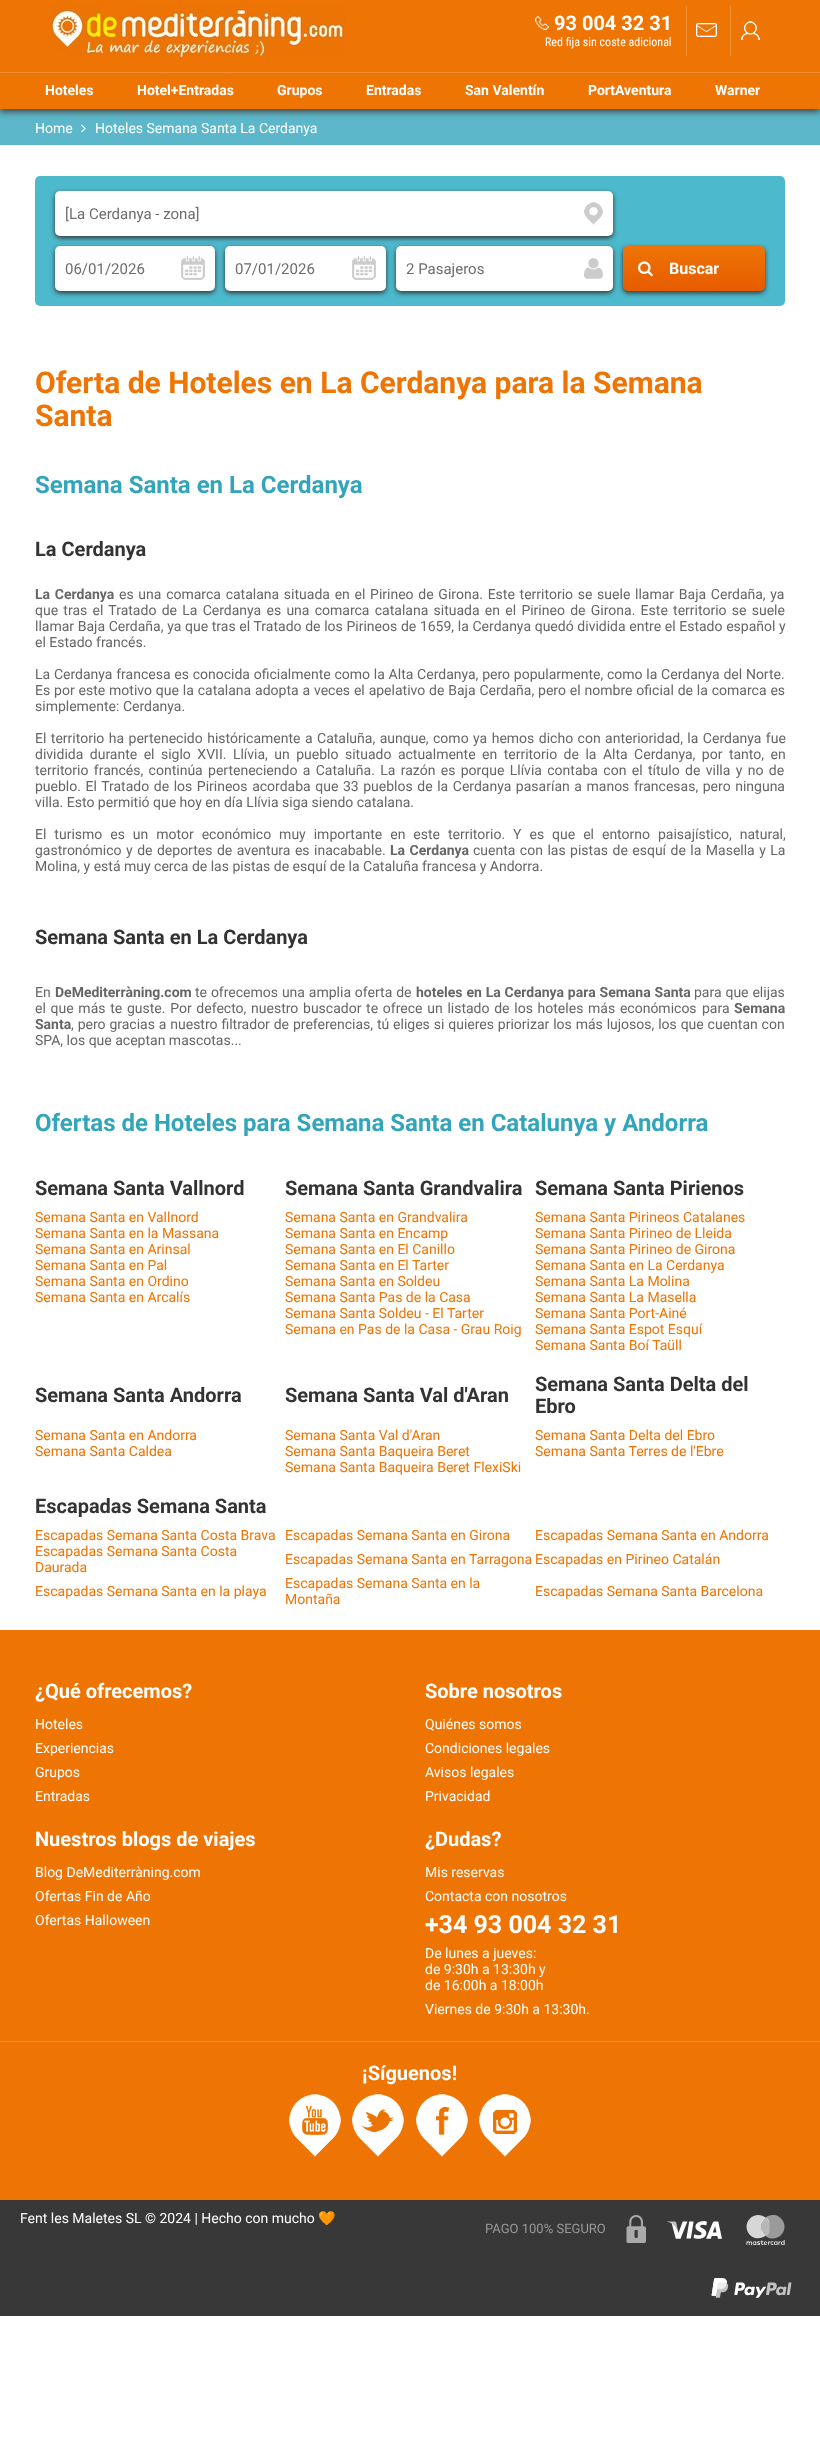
<svg xmlns="http://www.w3.org/2000/svg" width="820" height="2448" viewBox="0 0 820 2448">
  <defs>
    <filter id="blur1" x="-50%" y="-200%" width="200%" height="500%"><feGaussianBlur stdDeviation="3"/></filter>
    <filter id="blur2" x="-50%" y="-200%" width="200%" height="500%"><feGaussianBlur stdDeviation="2.5"/></filter>
    <linearGradient id="g1" gradientUnits="userSpaceOnUse" x1="694" y1="246" x2="694" y2="291"><stop offset="0" stop-color="#ee7404"/><stop offset="1" stop-color="#e75b00"/></linearGradient>
  </defs>
  <rect width="100%" height="100%" fill="#ffffff"/>
  <rect x="0" y="109" width="820" height="36" fill="#5bb7c9"/>
  <rect x="0" y="3" width="820" height="109" fill="#444444" filter="url(#blur1)"/>
  <rect x="0" y="0" width="820" height="109" fill="#ee7404"/>
  <rect x="0" y="72" width="820" height="1" fill="#f09036"/>
  <image x="50" y="5" width="295" height="52" href="img1.png"/>
  <image x="535" y="16" width="14" height="14" href="img2.png"/>
  <text x="554" y="30" font-family="Roboto" font-size="20" font-weight="bold" fill="#ffffff">93 004 32 31</text>
  <text x="545" y="46" font-family="Roboto Condensed" font-size="12" fill="#ffffff">Red fija sin coste adicional</text>
  <rect x="686" y="6" width="1" height="50" fill="#f09036"/>
  <image x="696" y="23" width="21" height="14" href="img3.png"/>
  <rect x="730" y="6" width="1" height="50" fill="#f09036"/>
  <image x="741" y="21" width="19" height="19" href="img4.png"/>
  <text x="45" y="95" font-family="Roboto" font-size="14" font-weight="bold" fill="#ffffff">Hoteles</text>
  <text x="137" y="95" font-family="Roboto" font-size="14" font-weight="bold" fill="#ffffff">Hotel+Entradas</text>
  <text x="277" y="95" font-family="Roboto" font-size="14" font-weight="bold" fill="#ffffff">Grupos</text>
  <text x="366" y="95" font-family="Roboto" font-size="14" font-weight="bold" fill="#ffffff">Entradas</text>
  <text x="465" y="95" font-family="Roboto" font-size="14" font-weight="bold" fill="#ffffff">San Valentín</text>
  <text x="588" y="95" font-family="Roboto" font-size="14" font-weight="bold" fill="#ffffff">PortAventura</text>
  <text x="715" y="95" font-family="Roboto" font-size="14" font-weight="bold" fill="#ffffff">Warner</text>
  <text x="35" y="133" font-family="Roboto" font-size="14" fill="#ffffff">Home</text>
  <image x="81" y="124" width="5" height="9" href="img5.png"/>
  <text x="95" y="133" font-family="Roboto" font-size="14" fill="#ffffff">Hoteles Semana Santa La Cerdanya</text>
  <rect x="35" y="176" width="750" height="130" rx="5" fill="#4db9cd"/>
  <rect x="396" y="248" width="217" height="45" rx="5" fill="#333333" filter="url(#blur2)"/>
  <rect x="396" y="246" width="217" height="45" rx="5" fill="#ffffff"/>
  <rect x="55" y="193" width="558" height="45" rx="5" fill="#333333" filter="url(#blur2)"/>
  <rect x="55" y="191" width="558" height="45" rx="5" fill="#ffffff"/>
  <image x="584" y="202" width="19" height="23" href="img6.png"/>
  <text x="65" y="219" font-family="Roboto" font-size="15" fill="#6d6d6d">[La Cerdanya - zona]</text>
  <rect x="55" y="248" width="160" height="45" rx="5" fill="#333333" filter="url(#blur2)"/>
  <rect x="55" y="246" width="160" height="45" rx="5" fill="#ffffff"/>
  <text x="65" y="274" font-family="Roboto" font-size="15" fill="#6d6d6d">06/01/2026</text>
  <image x="181" y="256" width="24" height="24" href="img7.png"/>
  <rect x="225" y="248" width="161" height="45" rx="5" fill="#333333" filter="url(#blur2)"/>
  <rect x="225" y="246" width="161" height="45" rx="5" fill="#ffffff"/>
  <text x="235" y="274" font-family="Roboto" font-size="15" fill="#6d6d6d">07/01/2026</text>
  <image x="352" y="256" width="24" height="24" href="img7.png"/>
  <text x="406" y="274" font-family="Roboto" font-size="15" fill="#6d6d6d">2 Pasajeros</text>
  <image x="584" y="258" width="19" height="21" href="img8.png"/>
  <rect x="623" y="248" width="142" height="45" rx="5" fill="#333333" filter="url(#blur2)"/>
  <rect x="623" y="246" width="142" height="45" rx="5" fill="url(#g1)"/>
  <image x="638" y="261" width="15" height="16" href="img9.png"/>
  <text x="669" y="274" font-family="Roboto" font-size="16" font-weight="bold" fill="#ffffff">Buscar</text>
  <text x="35" y="393" font-family="Roboto" font-size="30" font-weight="bold" fill="#ee7404">Oferta de Hoteles en La Cerdanya para la Semana</text>
  <text x="35" y="426" font-family="Roboto" font-size="30" font-weight="bold" fill="#ee7404">Santa</text>
  <text x="35" y="493" font-family="Roboto" font-size="24" font-weight="bold" fill="#32a5bb">Semana Santa en La Cerdanya</text>
  <text x="35" y="556" font-family="Roboto" font-size="20" font-weight="bold" fill="#333333">La Cerdanya</text>
  <text x="35" y="599" word-spacing="1.25" font-family="Roboto" font-size="14" font-weight="bold" fill="#666666">La Cerdanya</text>
  <text x="119" y="599" word-spacing="1.25" font-family="Roboto" font-size="14" fill="#666666">es una comarca catalana situada en el Pirineo de Girona. Este territorio se suele llamar Baja Cerdaña, ya</text>
  <text x="35" y="615" word-spacing="1.8" font-family="Roboto" font-size="14" fill="#666666">que tras el Tratado de La Cerdanya es una comarca catalana situada en el Pirineo de Girona. Este territorio se suele</text>
  <text x="35" y="631" word-spacing="0.2" font-family="Roboto" font-size="14" fill="#666666">llamar Baja Cerdaña, ya que tras el Tratado de los Pirineos de 1659, la Cerdanya quedó dividida entre el Estado español y</text>
  <text x="35" y="647" font-family="Roboto" font-size="14" fill="#666666">el Estado francés.</text>
  <text x="35" y="679" word-spacing="0.3" font-family="Roboto" font-size="14" fill="#666666">La Cerdanya francesa es conocida oficialmente como la Alta Cerdanya, pero popularmente, como la Cerdanya del Norte.</text>
  <text x="35" y="695" word-spacing="0.4" font-family="Roboto" font-size="14" fill="#666666">Es por este motivo que la catalana adopta a veces el apelativo de Baja Cerdaña, pero el nombre oficial de la comarca es</text>
  <text x="35" y="711" font-family="Roboto" font-size="14" fill="#666666">simplemente: Cerdanya.</text>
  <text x="35" y="743" word-spacing="1" font-family="Roboto" font-size="14" fill="#666666">El territorio ha pertenecido históricamente a Cataluña, aunque, como ya hemos dicho con anterioridad, la Cerdanya fue</text>
  <text x="35" y="759" word-spacing="3" font-family="Roboto" font-size="14" fill="#666666">dividida durante el siglo XVII. Llívia, un pueblo situado actualmente en territorio de la Alta Cerdanya, por tanto, en</text>
  <text x="35" y="775" word-spacing="1.9" font-family="Roboto" font-size="14" fill="#666666">territorio francés, continúa perteneciendo a Cataluña. La razón es porque Llívia contaba con el título de villa y no de</text>
  <text x="35" y="791" word-spacing="1.1" font-family="Roboto" font-size="14" fill="#666666">pueblo. El Tratado de los Pirineos acordaba que 33 pueblos de la Cerdanya pasarían a manos francesas, pero ninguna</text>
  <text x="35" y="807" font-family="Roboto" font-size="14" fill="#666666">villa. Esto permitió que hoy en día Llívia siga siendo catalana.</text>
  <text x="35" y="839" word-spacing="4.5" font-family="Roboto" font-size="14" fill="#666666">El turismo es un motor económico muy importante en este territorio. Y es que el entorno paisajístico, natural,</text>
  <text x="35" y="855" word-spacing="1" font-family="Roboto" font-size="14" fill="#666666">gastronómico y de deportes de aventura es inacabable.</text>
  <text x="390" y="855" word-spacing="1" font-family="Roboto" font-size="14" font-weight="bold" fill="#666666">La Cerdanya</text>
  <text x="473" y="855" word-spacing="1" font-family="Roboto" font-size="14" fill="#666666">cuenta con las pistas de esquí de la Masella y La</text>
  <text x="35" y="871" font-family="Roboto" font-size="14" fill="#666666">Molina, y está muy cerca de las pistas de esquí de la Cataluña francesa y Andorra.</text>
  <text x="35" y="944" font-family="Roboto" font-size="20" font-weight="bold" fill="#333333">Semana Santa en La Cerdanya</text>
  <text x="35" y="997" font-family="Roboto" font-size="14" fill="#666666">En</text>
  <text x="55" y="997" font-family="Roboto" font-size="14" font-weight="bold" fill="#666666">DeMediterràning.com</text>
  <text x="195" y="997" word-spacing="0.4" font-family="Roboto" font-size="14" fill="#666666">te ofrecemos una amplia oferta de</text>
  <text x="416" y="997" word-spacing="0.4" font-family="Roboto" font-size="14" font-weight="bold" fill="#666666">hoteles en La Cerdanya para Semana Santa</text>
  <text x="694" y="997" word-spacing="0.4" font-family="Roboto" font-size="14" fill="#666666">para que elijas</text>
  <text x="35" y="1013" word-spacing="1.25" font-family="Roboto" font-size="14" fill="#666666">el que más te guste. Por defecto, nuestro buscador te ofrece un listado de los hoteles más económicos</text>
  <text x="702" y="1013" font-family="Roboto" font-size="14" fill="#666666">para</text>
  <text x="734" y="1013" font-family="Roboto" font-size="14" font-weight="bold" fill="#666666">Semana</text>
  <text x="35" y="1029" font-family="Roboto" font-size="14" font-weight="bold" fill="#666666">Santa</text>
  <text x="71" y="1029" word-spacing="0.4" font-family="Roboto" font-size="14" fill="#666666">, pero gracias a nuestro filtrador de preferencias, tú eliges si quieres priorizar los más lujosos, los que cuentan con</text>
  <text x="35" y="1045" font-family="Roboto" font-size="14" fill="#666666">SPA, los que aceptan mascotas...</text>
  <text x="35" y="1131" font-family="Roboto" font-size="24" font-weight="bold" fill="#32a5bb">Ofertas de Hoteles para Semana Santa en Catalunya y Andorra</text>
  <text x="35" y="1195" font-family="Roboto" font-size="20" font-weight="bold" fill="#333333">Semana Santa Vallnord</text>
  <text x="285" y="1195" font-family="Roboto" font-size="20" font-weight="bold" fill="#333333">Semana Santa Grandvalira</text>
  <text x="535" y="1195" font-family="Roboto" font-size="20" font-weight="bold" fill="#333333">Semana Santa Pirienos</text>
  <text x="35" y="1222" font-family="Roboto" font-size="14" fill="#ee7404">Semana Santa en Vallnord</text>
  <text x="285" y="1222" font-family="Roboto" font-size="14" fill="#ee7404">Semana Santa en Grandvalira</text>
  <text x="535" y="1222" font-family="Roboto" font-size="14" fill="#ee7404">Semana Santa Pirineos Catalanes</text>
  <text x="35" y="1238" font-family="Roboto" font-size="14" fill="#ee7404">Semana Santa en la Massana</text>
  <text x="285" y="1238" font-family="Roboto" font-size="14" fill="#ee7404">Semana Santa en Encamp</text>
  <text x="535" y="1238" font-family="Roboto" font-size="14" fill="#ee7404">Semana Santa Pirineo de Lleida</text>
  <text x="35" y="1254" font-family="Roboto" font-size="14" fill="#ee7404">Semana Santa en Arinsal</text>
  <text x="285" y="1254" font-family="Roboto" font-size="14" fill="#ee7404">Semana Santa en El Canillo</text>
  <text x="535" y="1254" font-family="Roboto" font-size="14" fill="#ee7404">Semana Santa Pirineo de Girona</text>
  <text x="35" y="1270" font-family="Roboto" font-size="14" fill="#ee7404">Semana Santa en Pal</text>
  <text x="285" y="1270" font-family="Roboto" font-size="14" fill="#ee7404">Semana Santa en El Tarter</text>
  <text x="535" y="1270" font-family="Roboto" font-size="14" fill="#ee7404">Semana Santa en La Cerdanya</text>
  <text x="35" y="1286" font-family="Roboto" font-size="14" fill="#ee7404">Semana Santa en Ordino</text>
  <text x="285" y="1286" font-family="Roboto" font-size="14" fill="#ee7404">Semana Santa en Soldeu</text>
  <text x="535" y="1286" font-family="Roboto" font-size="14" fill="#ee7404">Semana Santa La Molina</text>
  <text x="35" y="1302" font-family="Roboto" font-size="14" fill="#ee7404">Semana Santa en Arcalís</text>
  <text x="285" y="1302" font-family="Roboto" font-size="14" fill="#ee7404">Semana Santa Pas de la Casa</text>
  <text x="535" y="1302" font-family="Roboto" font-size="14" fill="#ee7404">Semana Santa La Masella</text>
  <text x="285" y="1318" font-family="Roboto" font-size="14" fill="#ee7404">Semana Santa Soldeu - El Tarter</text>
  <text x="535" y="1318" font-family="Roboto" font-size="14" fill="#ee7404">Semana Santa Port-Ainé</text>
  <text x="285" y="1334" font-family="Roboto" font-size="14" fill="#ee7404">Semana en Pas de la Casa - Grau Roig</text>
  <text x="535" y="1334" font-family="Roboto" font-size="14" fill="#ee7404">Semana Santa Espot Esquí</text>
  <text x="535" y="1350" font-family="Roboto" font-size="14" fill="#ee7404">Semana Santa Boí Taüll</text>
  <text x="35" y="1402" font-family="Roboto" font-size="20" font-weight="bold" fill="#333333">Semana Santa Andorra</text>
  <text x="285" y="1402" font-family="Roboto" font-size="20" font-weight="bold" fill="#333333">Semana Santa Val d'Aran</text>
  <text x="535" y="1391" font-family="Roboto" font-size="20" font-weight="bold" fill="#333333">Semana Santa Delta del</text>
  <text x="535" y="1413" font-family="Roboto" font-size="20" font-weight="bold" fill="#333333">Ebro</text>
  <text x="35" y="1440" font-family="Roboto" font-size="14" fill="#ee7404">Semana Santa en Andorra</text>
  <text x="285" y="1440" font-family="Roboto" font-size="14" fill="#ee7404">Semana Santa Val d'Aran</text>
  <text x="535" y="1440" font-family="Roboto" font-size="14" fill="#ee7404">Semana Santa Delta del Ebro</text>
  <text x="35" y="1456" font-family="Roboto" font-size="14" fill="#ee7404">Semana Santa Caldea</text>
  <text x="285" y="1456" font-family="Roboto" font-size="14" fill="#ee7404">Semana Santa Baqueira Beret</text>
  <text x="535" y="1456" font-family="Roboto" font-size="14" fill="#ee7404">Semana Santa Terres de l'Ebre</text>
  <text x="285" y="1472" font-family="Roboto" font-size="14" fill="#ee7404">Semana Santa Baqueira Beret FlexiSki</text>
  <text x="35" y="1513" font-family="Roboto" font-size="20" font-weight="bold" fill="#333333">Escapadas Semana Santa</text>
  <text x="35" y="1540" font-family="Roboto" font-size="14" fill="#ee7404">Escapadas Semana Santa Costa Brava</text>
  <text x="285" y="1540" font-family="Roboto" font-size="14" fill="#ee7404">Escapadas Semana Santa en Girona</text>
  <text x="535" y="1540" font-family="Roboto" font-size="14" fill="#ee7404">Escapadas Semana Santa en Andorra</text>
  <text x="35" y="1556" font-family="Roboto" font-size="14" fill="#ee7404">Escapadas Semana Santa Costa</text>
  <text x="35" y="1572" font-family="Roboto" font-size="14" fill="#ee7404">Daurada</text>
  <text x="285" y="1564" font-family="Roboto" font-size="14" fill="#ee7404">Escapadas Semana Santa en Tarragona</text>
  <text x="535" y="1564" font-family="Roboto" font-size="14" fill="#ee7404">Escapadas en Pirineo Catalán</text>
  <text x="35" y="1596" font-family="Roboto" font-size="14" fill="#ee7404">Escapadas Semana Santa en la playa</text>
  <text x="285" y="1588" font-family="Roboto" font-size="14" fill="#ee7404">Escapadas Semana Santa en la</text>
  <text x="285" y="1604" font-family="Roboto" font-size="14" fill="#ee7404">Montaña</text>
  <text x="535" y="1596" font-family="Roboto" font-size="14" fill="#ee7404">Escapadas Semana Santa Barcelona</text>
  <rect x="0" y="1630" width="820" height="570" fill="#ee7404"/>
  <text x="35" y="1698" font-family="Roboto" font-size="20" font-weight="bold" fill="#ffffff">¿Qué ofrecemos?</text>
  <text x="35" y="1729" font-family="Roboto" font-size="14" fill="#ffffff">Hoteles</text>
  <text x="35" y="1753" font-family="Roboto" font-size="14" fill="#ffffff">Experiencias</text>
  <text x="35" y="1777" font-family="Roboto" font-size="14" fill="#ffffff">Grupos</text>
  <text x="35" y="1801" font-family="Roboto" font-size="14" fill="#ffffff">Entradas</text>
  <text x="425" y="1698" font-family="Roboto" font-size="20" font-weight="bold" fill="#ffffff">Sobre nosotros</text>
  <text x="425" y="1729" font-family="Roboto" font-size="14" fill="#ffffff">Quiénes somos</text>
  <text x="425" y="1753" font-family="Roboto" font-size="14" fill="#ffffff">Condiciones legales</text>
  <text x="425" y="1777" font-family="Roboto" font-size="14" fill="#ffffff">Avisos legales</text>
  <text x="425" y="1801" font-family="Roboto" font-size="14" fill="#ffffff">Privacidad</text>
  <text x="35" y="1846" font-family="Roboto" font-size="20" font-weight="bold" fill="#ffffff">Nuestros blogs de viajes</text>
  <text x="35" y="1877" font-family="Roboto" font-size="14" fill="#ffffff">Blog DeMediterràning.com</text>
  <text x="35" y="1901" font-family="Roboto" font-size="14" fill="#ffffff">Ofertas Fin de Año</text>
  <text x="35" y="1925" font-family="Roboto" font-size="14" fill="#ffffff">Ofertas Halloween</text>
  <text x="425" y="1846" font-family="Roboto" font-size="20" font-weight="bold" fill="#ffffff">¿Dudas?</text>
  <text x="425" y="1877" font-family="Roboto" font-size="14" fill="#ffffff">Mis reservas</text>
  <text x="425" y="1901" font-family="Roboto" font-size="14" fill="#ffffff">Contacta con nosotros</text>
  <text x="425" y="1933" font-family="Roboto" font-size="25" font-weight="bold" fill="#ffffff">+34 93 004 32 31</text>
  <text x="425" y="1958" font-family="Roboto" font-size="14" fill="#ffffff">De lunes a jueves:</text>
  <text x="425" y="1974" font-family="Roboto" font-size="14" fill="#ffffff">de 9:30h a 13:30h y</text>
  <text x="425" y="1990" font-family="Roboto" font-size="14" fill="#ffffff">de 16:00h a 18:00h</text>
  <text x="425" y="2014" font-family="Roboto" font-size="14" fill="#ffffff">Viernes de 9:30h a 13:30h.</text>
  <rect x="0" y="2041" width="820" height="1" fill="#f09036"/>
  <text x="362" y="2080" font-family="Roboto" font-size="20" font-weight="bold" fill="#ffffff">¡Síguenos!</text>
  <image x="289" y="2094" width="52" height="63" href="img10.png"/>
  <image x="352" y="2094" width="52" height="63" href="img11.png"/>
  <image x="416" y="2094" width="52" height="63" href="img12.png"/>
  <image x="479" y="2094" width="52" height="63" href="img13.png"/>
  <rect x="0" y="2200" width="820" height="116" fill="#383838"/>
  <text x="20" y="2223" font-family="Roboto" font-size="14" fill="#ffffff">Fent les Maletes SL © 2024 | Hecho con mucho</text>
  <text x="318" y="2223" font-family="Noto Color Emoji" font-size="14" fill="#ffffff">🧡</text>
  <text x="485" y="2233" font-family="Roboto" font-size="13" fill="#999999">PAGO 100% SEGURO</text>
  <image x="626" y="2215" width="20" height="28" href="img14.png"/>
  <image x="667" y="2215" width="118" height="31" href="img15.png"/>
  <image x="711" y="2278" width="81" height="20" href="img16.png"/>
</svg>
